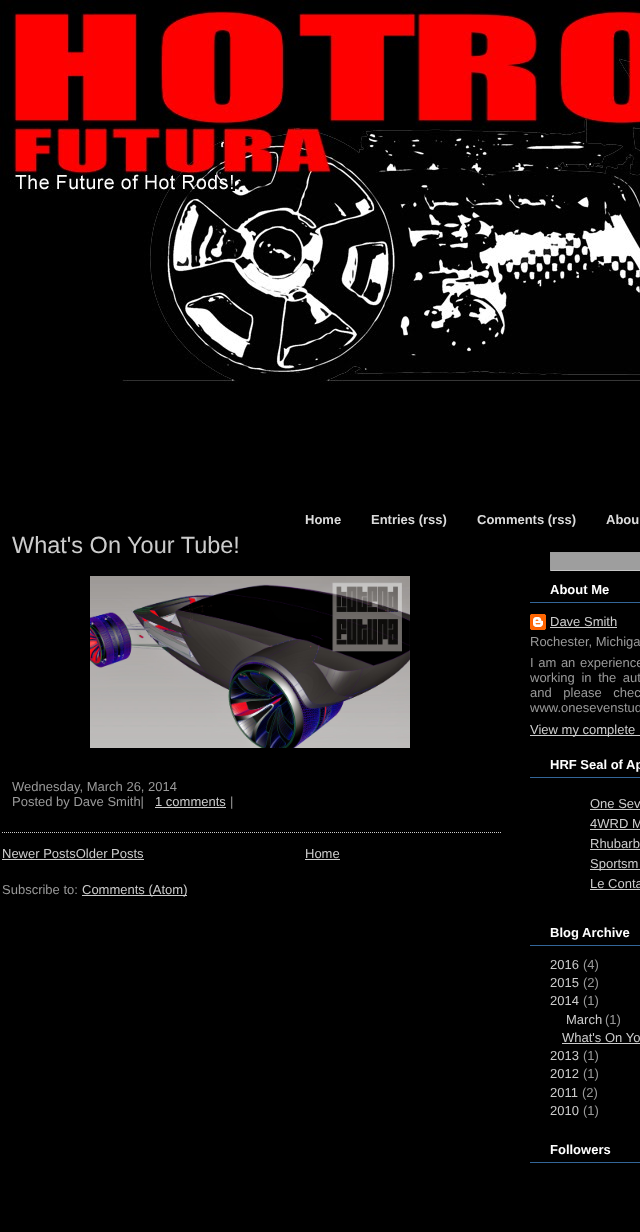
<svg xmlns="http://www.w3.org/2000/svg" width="640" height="1232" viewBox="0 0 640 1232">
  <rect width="100%" height="100%" fill="#000000"/>
  <image x="0" y="0" width="640" height="384" href="img1.png"/>
  <text x="305" y="524" font-family="Liberation Sans" font-size="13" font-weight="bold" fill="#dbdbdb">Home</text>
  <text x="371" y="524" font-family="Liberation Sans" font-size="13" font-weight="bold" fill="#dbdbdb">Entries (rss)</text>
  <text x="477" y="524" font-family="Liberation Sans" font-size="13" font-weight="bold" fill="#dbdbdb">Comments (rss)</text>
  <text x="606" y="524" font-family="Liberation Sans" font-size="13" font-weight="bold" fill="#dbdbdb">Abou</text>
  <path d="M2 832.5H502" fill="none" stroke="#cccccc" stroke-dasharray="1 1"/>
  <text x="12" y="553" font-family="Liberation Sans" font-size="23.5" fill="#cccccc">What's On Your Tube!</text>
  <image x="90" y="576" width="320" height="172" href="img2.png"/>
  <text x="12" y="791" font-family="Liberation Sans" font-size="13" fill="#999999">Wednesday, March 26, 2014</text>
  <text x="12" y="806" font-family="Liberation Sans" font-size="13" fill="#999999">Posted by Dave Smith|</text>
  <text x="155" y="806" font-family="Liberation Sans" font-size="13" fill="#cccccc">1 comments</text>
  <rect x="155" y="807" width="71" height="1" fill="#cccccc"/>
  <text x="230" y="806" font-family="Liberation Sans" font-size="13" fill="#999999">|</text>
  <text x="2" y="858" font-family="Liberation Sans" font-size="13" fill="#cccccc">Newer PostsOlder Posts</text>
  <rect x="2" y="859" width="142" height="1" fill="#cccccc"/>
  <text x="305" y="858" font-family="Liberation Sans" font-size="13" fill="#cccccc">Home</text>
  <rect x="305" y="859" width="35" height="1" fill="#cccccc"/>
  <text x="2" y="894" font-family="Liberation Sans" font-size="13" fill="#999999">Subscribe to:</text>
  <rect x="82" y="895" width="105" height="1" fill="#cccccc"/>
  <text x="82" y="894" font-family="Liberation Sans" font-size="13" fill="#cccccc">Comments (Atom)</text>
  <rect x="551" y="553" width="89" height="17" fill="#9e9e9e"/>
  <rect x="550" y="552" width="90" height="1" fill="#9c9c9c"/>
  <rect x="550" y="570" width="90" height="1" fill="#c6c6c6"/>
  <rect x="550" y="552" width="1" height="19" fill="#9c9c9c"/>
  <rect x="530" y="602" width="110" height="1" fill="#336699"/>
  <text x="550" y="594" font-family="Liberation Sans" font-size="13" font-weight="bold" fill="#ffffff">About Me</text>
  <image x="530" y="614" width="16" height="16" href="img3.png"/>
  <text x="550" y="626" font-family="Liberation Sans" font-size="13" fill="#cccccc">Dave Smith</text>
  <rect x="550" y="627" width="67" height="1" fill="#cccccc"/>
  <text x="530" y="646" font-family="Liberation Sans" font-size="13" fill="#999999">Rochester, Michiga</text>
  <text x="530" y="667" word-spacing="1" font-family="Liberation Sans" font-size="13" fill="#999999">I am an experience</text>
  <text x="530" y="682" word-spacing="3" font-family="Liberation Sans" font-size="13" fill="#999999">working in the aut</text>
  <text x="530" y="697" word-spacing="8" font-family="Liberation Sans" font-size="13" fill="#999999">and please chec</text>
  <text x="530" y="712" font-family="Liberation Sans" font-size="13" fill="#999999">www.onesevenstud</text>
  <rect x="530" y="735" width="110" height="1" fill="#cccccc"/>
  <text x="530" y="734" font-family="Liberation Sans" font-size="13" fill="#cccccc">View my complete</text>
  <rect x="530" y="777" width="110" height="1" fill="#336699"/>
  <text x="550" y="769" font-family="Liberation Sans" font-size="13" font-weight="bold" fill="#ffffff">HRF Seal of Ap</text>
  <text x="590" y="808" font-family="Liberation Sans" font-size="13" fill="#cccccc">One Sev</text>
  <rect x="590" y="809" width="50" height="1" fill="#cccccc"/>
  <text x="590" y="828" font-family="Liberation Sans" font-size="13" fill="#cccccc">4WRD M</text>
  <rect x="590" y="829" width="50" height="1" fill="#cccccc"/>
  <text x="590" y="848" font-family="Liberation Sans" font-size="13" fill="#cccccc">Rhubarb</text>
  <rect x="590" y="849" width="50" height="1" fill="#cccccc"/>
  <rect x="590" y="869" width="50" height="1" fill="#cccccc"/>
  <text x="590" y="868" font-family="Liberation Sans" font-size="13" fill="#cccccc">Sportsm</text>
  <text x="590" y="888" font-family="Liberation Sans" font-size="13" fill="#cccccc">Le Conta</text>
  <rect x="590" y="889" width="50" height="1" fill="#cccccc"/>
  <rect x="530" y="945" width="110" height="1" fill="#336699"/>
  <text x="550" y="937" font-family="Liberation Sans" font-size="13" font-weight="bold" fill="#ffffff">Blog Archive</text>
  <text x="550" y="969" font-family="Liberation Sans" font-size="13" fill="#cccccc">2016</text>
  <text x="583" y="969" font-family="Liberation Sans" font-size="13" fill="#999999">(4)</text>
  <text x="550" y="987" font-family="Liberation Sans" font-size="13" fill="#cccccc">2015</text>
  <text x="583" y="987" font-family="Liberation Sans" font-size="13" fill="#999999">(2)</text>
  <text x="550" y="1005" font-family="Liberation Sans" font-size="13" fill="#cccccc">2014</text>
  <text x="583" y="1005" font-family="Liberation Sans" font-size="13" fill="#999999">(1)</text>
  <text x="566" y="1024" font-family="Liberation Sans" font-size="13" fill="#cccccc">March</text>
  <text x="605" y="1024" font-family="Liberation Sans" font-size="13" fill="#999999">(1)</text>
  <text x="562" y="1042" font-family="Liberation Sans" font-size="13" fill="#cccccc">What's On Yo</text>
  <rect x="562" y="1043" width="78" height="1" fill="#cccccc"/>
  <text x="550" y="1060" font-family="Liberation Sans" font-size="13" fill="#cccccc">2013</text>
  <text x="583" y="1060" font-family="Liberation Sans" font-size="13" fill="#999999">(1)</text>
  <text x="550" y="1078" font-family="Liberation Sans" font-size="13" fill="#cccccc">2012</text>
  <text x="583" y="1078" font-family="Liberation Sans" font-size="13" fill="#999999">(1)</text>
  <text x="550" y="1097" font-family="Liberation Sans" font-size="13" fill="#cccccc">2011</text>
  <text x="582" y="1097" font-family="Liberation Sans" font-size="13" fill="#999999">(2)</text>
  <text x="550" y="1115" font-family="Liberation Sans" font-size="13" fill="#cccccc">2010</text>
  <text x="583" y="1115" font-family="Liberation Sans" font-size="13" fill="#999999">(1)</text>
  <rect x="530" y="1162" width="110" height="1" fill="#336699"/>
  <text x="550" y="1154" font-family="Liberation Sans" font-size="13" font-weight="bold" fill="#ffffff">Followers</text>
</svg>
